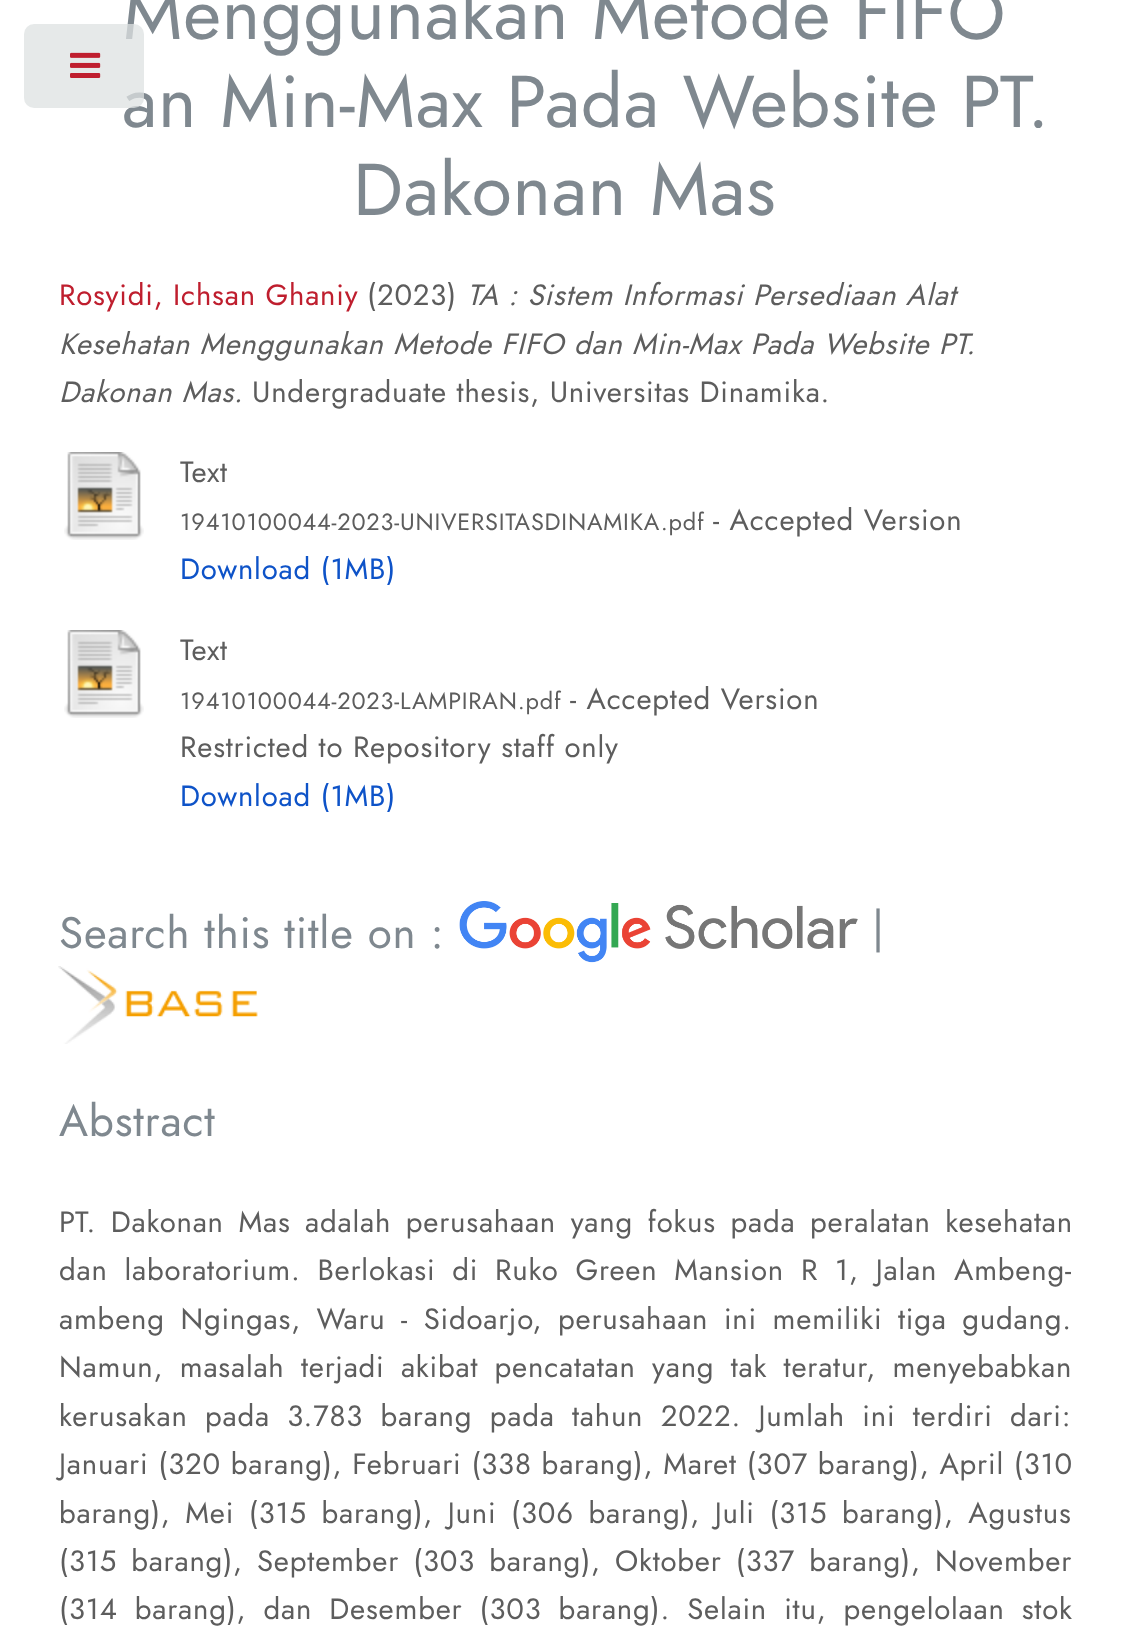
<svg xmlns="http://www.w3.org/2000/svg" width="1130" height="1639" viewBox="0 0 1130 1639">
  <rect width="100%" height="100%" fill="#ffffff"/>
  <text x="123" y="39" font-family="Jost" font-size="73.3" letter-spacing="0.8" fill="#7f888f">Menggunakan Metode FIFO</text>
  <text x="122" y="127" font-family="Jost" font-size="73.3" letter-spacing="0.8" fill="#7f888f">an Min-Max Pada Website PT.</text>
  <text x="353" y="215" font-family="Jost" font-size="73.3" letter-spacing="0.8" fill="#7f888f">Dakonan Mas</text>
  <text x="59" y="305" font-family="Jost" font-size="29.35" letter-spacing="0.8" fill="#bf1e2e">Rosyidi, Ichsan Ghaniy</text>
  <text x="367" y="305" font-family="Jost" font-size="29.35" letter-spacing="0.8" fill="#5d5d5d">(2023)</text>
  <text x="467" y="305" font-family="Jost" font-size="29.35" font-style="italic" letter-spacing="0.8" fill="#5d5d5d">TA : Sistem Informasi Persediaan Alat</text>
  <text x="59" y="354" font-family="Jost" font-size="29.35" font-style="italic" letter-spacing="0.8" fill="#5d5d5d">Kesehatan Menggunakan Metode FIFO dan Min-Max Pada Website PT.</text>
  <text x="59" y="402" font-family="Jost" font-size="29.35" font-style="italic" letter-spacing="0.8" fill="#5d5d5d">Dakonan Mas.</text>
  <text x="252" y="402" font-family="Jost" font-size="29.35" letter-spacing="0.8" fill="#5d5d5d">Undergraduate thesis, Universitas Dinamika.</text>
  <image x="64" y="452" width="80" height="88" href="img1.png"/>
  <text x="180" y="482" font-family="Jost" font-size="29.35" letter-spacing="0.8" fill="#5d5d5d">Text</text>
  <text x="180" y="530" font-family="Jost" font-size="23.5" letter-spacing="0.8" fill="#5d5d5d">19410100044-2023-UNIVERSITASDINAMIKA.pdf</text>
  <text x="713" y="530" font-family="Jost" font-size="29.35" letter-spacing="0.8" fill="#5d5d5d">- Accepted Version</text>
  <text x="180" y="579" font-family="Jost" font-size="29.35" letter-spacing="0.8" fill="#0e53c8">Download (1MB)</text>
  <image x="64" y="630" width="80" height="88" href="img1.png"/>
  <text x="180" y="660" font-family="Jost" font-size="29.35" letter-spacing="0.8" fill="#5d5d5d">Text</text>
  <text x="180" y="709" font-family="Jost" font-size="23.5" letter-spacing="0.8" fill="#5d5d5d">19410100044-2023-LAMPIRAN.pdf</text>
  <text x="570" y="709" font-family="Jost" font-size="29.35" letter-spacing="0.8" fill="#5d5d5d">- Accepted Version</text>
  <text x="180" y="757" font-family="Jost" font-size="29.35" letter-spacing="0.8" fill="#5d5d5d">Restricted to Repository staff only</text>
  <text x="180" y="806" font-family="Jost" font-size="29.35" letter-spacing="0.8" fill="#0e53c8">Download (1MB)</text>
  <text x="59" y="948" font-family="Jost" font-size="44" letter-spacing="0.8" fill="#7f888f">Search this title on :</text>
  <image x="459" y="901" width="399" height="62" href="img2.png"/>
  <text x="872" y="943" font-family="Jost" font-size="44" letter-spacing="0.8" fill="#7f888f">|</text>
  <image x="58" y="966" width="200" height="78" href="img3.png"/>
  <text x="59" y="1136" font-family="Jost" font-size="44" letter-spacing="0.8" fill="#7f888f">Abstract</text>
  <text x="59" y="1232" word-spacing="5" font-family="Jost" font-size="29.35" letter-spacing="0.8" fill="#5d5d5d">PT. Dakonan Mas adalah perusahaan yang fokus pada peralatan kesehatan</text>
  <text x="59" y="1280" word-spacing="7.25" font-family="Jost" font-size="29.35" letter-spacing="0.8" fill="#5d5d5d">dan laboratorium. Berlokasi di Ruko Green Mansion R 1, Jalan Ambeng-</text>
  <text x="59" y="1329" word-spacing="6" font-family="Jost" font-size="29.35" letter-spacing="0.8" fill="#5d5d5d">ambeng Ngingas, Waru - Sidoarjo, perusahaan ini memiliki tiga gudang.</text>
  <text x="59" y="1377" word-spacing="6.75" font-family="Jost" font-size="29.35" letter-spacing="0.8" fill="#5d5d5d">Namun, masalah terjadi akibat pencatatan yang tak teratur, menyebabkan</text>
  <text x="59" y="1426" word-spacing="7.75" font-family="Jost" font-size="29.35" letter-spacing="0.8" fill="#5d5d5d">kerusakan pada 3.783 barang pada tahun 2022. Jumlah ini terdiri dari:</text>
  <text x="59" y="1474" word-spacing="0.25" font-family="Jost" font-size="29.35" letter-spacing="0.8" fill="#5d5d5d">Januari (320 barang), Februari (338 barang), Maret (307 barang), April (310</text>
  <text x="59" y="1523" word-spacing="5" font-family="Jost" font-size="29.35" letter-spacing="0.8" fill="#5d5d5d">barang), Mei (315 barang), Juni (306 barang), Juli (315 barang), Agustus</text>
  <text x="59" y="1571" word-spacing="4.5" font-family="Jost" font-size="29.35" letter-spacing="0.8" fill="#5d5d5d">(315 barang), September (303 barang), Oktober (337 barang), November</text>
  <text x="59" y="1619" word-spacing="7.5" font-family="Jost" font-size="29.35" letter-spacing="0.8" fill="#5d5d5d">(314 barang), dan Desember (303 barang). Selain itu, pengelolaan stok</text>
  <rect x="24" y="24" width="120" height="84" rx="10" fill="#dee1e2" fill-opacity="0.75"/>
  <image x="70" y="52" width="31" height="26" href="img4.png"/>
</svg>
